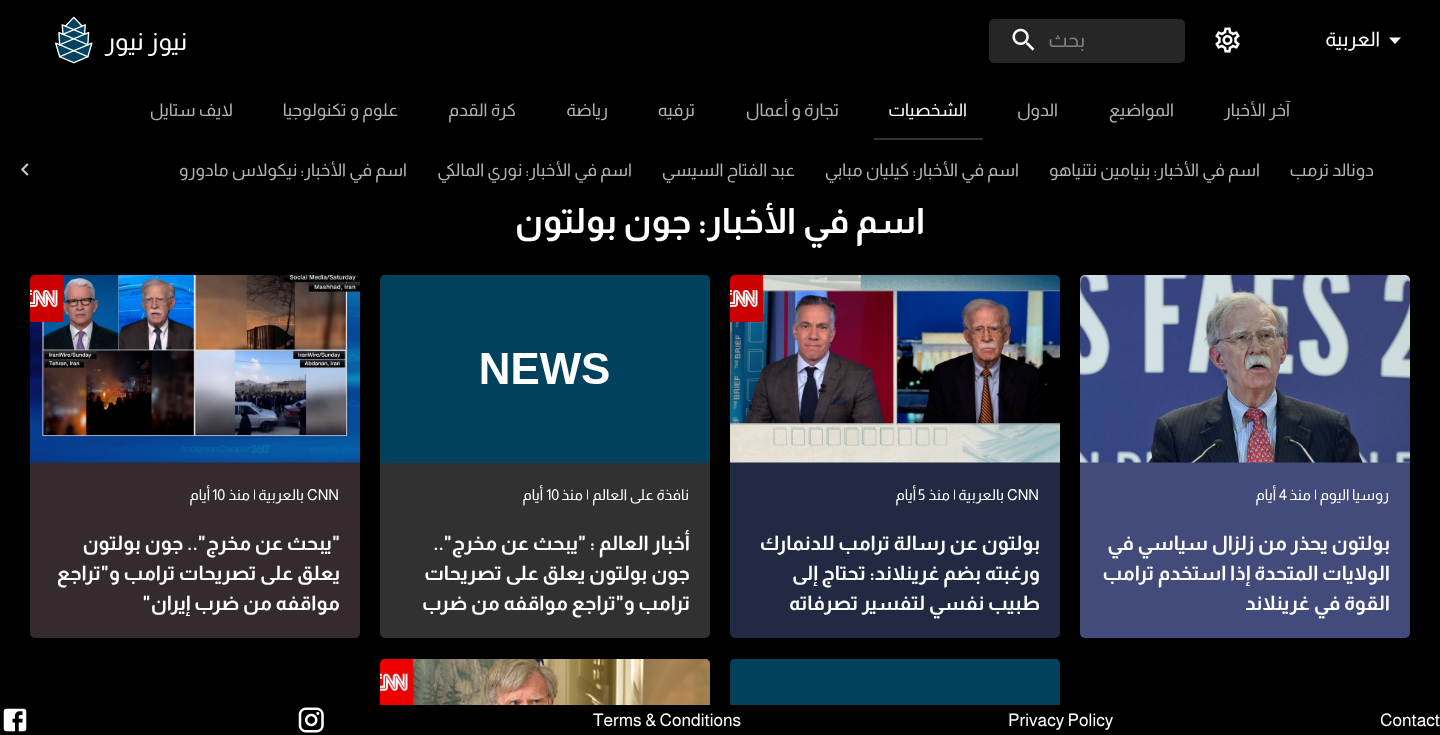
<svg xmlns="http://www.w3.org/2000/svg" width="1440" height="735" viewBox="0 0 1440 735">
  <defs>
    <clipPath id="clip1"><rect x="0" y="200" width="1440" height="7"/></clipPath>
    <filter id="blur1" x="-50%" y="-200%" width="200%" height="500%"><feGaussianBlur stdDeviation="6"/></filter>
    <clipPath id="clip2"><rect x="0" y="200" width="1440" height="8"/></clipPath>
    <filter id="blur2" x="-50%" y="-200%" width="200%" height="500%"><feGaussianBlur stdDeviation="3"/></filter>
  </defs>
  <rect width="100%" height="100%" fill="#000000"/>
  <g clip-path="url(#clip1)">
    <rect x="0" y="1" width="1440" height="200" fill="#000000" fill-opacity="0.12" filter="url(#blur1)"/>
  </g>
  <g clip-path="url(#clip2)">
    <rect x="0" y="5" width="1440" height="200" fill="#000000" fill-opacity="0.14" filter="url(#blur2)"/>
  </g>
  <path d="M1389 37.5L1395 44L1401 37.5Z" fill="#ffffff"/>
  <text x="1380" y="46" font-family="Almarai" font-size="20" direction="rtl" fill="#ffffff">العربية</text>
  <image x="1215" y="27" width="25" height="26" href="img1.png"/>
  <rect x="989" y="19" width="196" height="44" rx="5" fill="#262626"/>
  <text x="1085" y="47" font-family="Almarai" font-size="20" direction="rtl" fill="#818181">بحث</text>
  <image x="1012" y="28" width="23" height="23" href="img2.png"/>
  <text x="187" y="50" font-family="Almarai" font-size="25" direction="rtl" fill="#ffffff">نيوز نيور</text>
  <image x="55" y="16" width="38" height="48" href="img3.png"/>
  <text x="1290" y="116" font-family="Almarai" font-size="17.5" direction="rtl" fill="#b3b3b3">آخر الأخبار</text>
  <text x="1174" y="116" font-family="Almarai" font-size="17.5" direction="rtl" fill="#b3b3b3">المواضيع</text>
  <text x="1058" y="116" font-family="Almarai" font-size="17.5" direction="rtl" fill="#b3b3b3">الدول</text>
  <text x="967" y="116" font-family="Almarai" font-size="17.5" direction="rtl" fill="#ffffff">الشخصيات</text>
  <text x="839" y="116" font-family="Almarai" font-size="17.5" direction="rtl" fill="#b3b3b3">تجارة و أعمال</text>
  <text x="695" y="116" font-family="Almarai" font-size="17.5" direction="rtl" fill="#b3b3b3">ترفيه</text>
  <text x="608" y="116" font-family="Almarai" font-size="17.5" direction="rtl" fill="#b3b3b3">رياضة</text>
  <text x="516" y="116" font-family="Almarai" font-size="17.5" direction="rtl" fill="#b3b3b3">كرة القدم</text>
  <text x="398" y="116" font-family="Almarai" font-size="17.5" direction="rtl" fill="#b3b3b3">علوم و تكنولوجيا</text>
  <text x="233" y="116" font-family="Almarai" font-size="17.5" direction="rtl" fill="#b3b3b3">لايف ستايل</text>
  <rect x="874" y="138" width="109" height="2" fill="#333333"/>
  <text x="1374" y="176" font-family="Almarai" font-size="17.5" direction="rtl" fill="#b3b3b3">دونالد ترمب</text>
  <text x="1260" y="176" font-family="Almarai" font-size="17.5" direction="rtl" fill="#b3b3b3">اسم في الأخبار: بنيامين نتنياهو</text>
  <text x="1019" y="176" font-family="Almarai" font-size="17.5" direction="rtl" fill="#b3b3b3">اسم في الأخبار: كيليان مبابي</text>
  <text x="795" y="176" font-family="Almarai" font-size="17.5" direction="rtl" fill="#b3b3b3">عبد الفتاح السيسي</text>
  <text x="632" y="176" font-family="Almarai" font-size="17.5" direction="rtl" fill="#b3b3b3">اسم في الأخبار: نوري المالكي</text>
  <text x="407" y="176" font-family="Almarai" font-size="17.5" direction="rtl" fill="#b3b3b3">اسم في الأخبار: نيكولاس مادورو</text>
  <image x="20" y="163" width="9" height="13" href="img4.png"/>
  <text x="925" y="233" font-family="Almarai" font-size="35" font-weight="bold" direction="rtl" fill="#ffffff">اسم في الأخبار: جون بولتون</text>
  <rect x="1080" y="275" width="330" height="363" rx="5" fill="#424b7a"/>
  <image x="1080" y="275" width="330" height="188" href="img5.png"/>
  <text x="1389" y="500" font-family="Almarai" font-size="15" direction="rtl" fill="#ffffff">روسيا اليوم</text>
  <text x="1314" y="500" font-family="Almarai" font-size="15" fill="#ffffff">|</text>
  <text x="1311" y="500" font-family="Almarai" font-size="15" direction="rtl" fill="#ffffff">منذ</text>
  <text x="1279" y="500" font-family="Almarai" font-size="15" fill="#ffffff">4</text>
  <text x="1276" y="500" font-family="Almarai" font-size="15" direction="rtl" fill="#ffffff">أيام</text>
  <text x="1390" y="550" font-family="Almarai" font-size="20" font-weight="bold" direction="rtl" fill="#ffffff">بولتون يحذر من زلزال سياسي في</text>
  <text x="1390" y="580" font-family="Almarai" font-size="20" font-weight="bold" direction="rtl" fill="#ffffff">الولايات المتحدة إذا استخدم ترامب</text>
  <text x="1390" y="610" font-family="Almarai" font-size="20" font-weight="bold" direction="rtl" fill="#ffffff">القوة في غرينلاند</text>
  <rect x="730" y="275" width="330" height="363" rx="5" fill="#222943"/>
  <image x="730" y="275" width="330" height="188" href="img6.png"/>
  <text x="1007" y="500" font-family="Almarai" font-size="15" fill="#ffffff">CNN</text>
  <text x="1004" y="500" font-family="Almarai" font-size="15" direction="rtl" fill="#ffffff">بالعربية</text>
  <text x="953" y="500" font-family="Almarai" font-size="15" fill="#ffffff">|</text>
  <text x="950" y="500" font-family="Almarai" font-size="15" direction="rtl" fill="#ffffff">منذ</text>
  <text x="918" y="500" font-family="Almarai" font-size="15" fill="#ffffff">5</text>
  <text x="916" y="500" font-family="Almarai" font-size="15" direction="rtl" fill="#ffffff">أيام</text>
  <text x="1040" y="550" font-family="Almarai" font-size="20" font-weight="bold" direction="rtl" fill="#ffffff">بولتون عن رسالة ترامب للدنمارك</text>
  <text x="1040" y="580" font-family="Almarai" font-size="20" font-weight="bold" direction="rtl" fill="#ffffff">ورغبته بضم غرينلاند: تحتاج إلى</text>
  <text x="1040" y="610" font-family="Almarai" font-size="20" font-weight="bold" direction="rtl" fill="#ffffff">طبيب نفسي لتفسير تصرفاته</text>
  <rect x="380" y="275" width="330" height="363" rx="5" fill="#313131"/>
  <image x="380" y="275" width="330" height="188" href="img7.png"/>
  <text x="689" y="500" font-family="Almarai" font-size="15" direction="rtl" fill="#ffffff">نافذة على العالم</text>
  <text x="586" y="500" font-family="Almarai" font-size="15" fill="#ffffff">|</text>
  <text x="583" y="500" font-family="Almarai" font-size="15" direction="rtl" fill="#ffffff">منذ</text>
  <text x="546" y="500" font-family="Almarai" font-size="15" fill="#ffffff">10</text>
  <text x="543" y="500" font-family="Almarai" font-size="15" direction="rtl" fill="#ffffff">أيام</text>
  <text x="690" y="550" font-family="Almarai" font-size="20" font-weight="bold" direction="rtl" fill="#ffffff">أخبار العالم : "يبحث عن مخرج"..</text>
  <text x="690" y="580" font-family="Almarai" font-size="20" font-weight="bold" direction="rtl" fill="#ffffff">جون بولتون يعلق على تصريحات</text>
  <text x="690" y="610" font-family="Almarai" font-size="20" font-weight="bold" direction="rtl" fill="#ffffff">ترامب و"تراجع مواقفه من ضرب</text>
  <rect x="30" y="275" width="330" height="363" rx="5" fill="#352b2e"/>
  <image x="30" y="275" width="330" height="188" href="img8.png"/>
  <text x="307" y="500" font-family="Almarai" font-size="15" fill="#ffffff">CNN</text>
  <text x="304" y="500" font-family="Almarai" font-size="15" direction="rtl" fill="#ffffff">بالعربية</text>
  <text x="253" y="500" font-family="Almarai" font-size="15" fill="#ffffff">|</text>
  <text x="250" y="500" font-family="Almarai" font-size="15" direction="rtl" fill="#ffffff">منذ</text>
  <text x="212" y="500" font-family="Almarai" font-size="15" fill="#ffffff">10</text>
  <text x="210" y="500" font-family="Almarai" font-size="15" direction="rtl" fill="#ffffff">أيام</text>
  <text x="340" y="550" font-family="Almarai" font-size="20" font-weight="bold" direction="rtl" fill="#ffffff">"يبحث عن مخرج".. جون بولتون</text>
  <text x="340" y="580" font-family="Almarai" font-size="20" font-weight="bold" direction="rtl" fill="#ffffff">يعلق على تصريحات ترامب و"تراجع</text>
  <text x="340" y="610" font-family="Almarai" font-size="20" font-weight="bold" direction="rtl" fill="#ffffff">مواقفه من ضرب إيران"</text>
  <rect x="730" y="659" width="330" height="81" rx="5" fill="#313131"/>
  <image x="730" y="659" width="330" height="46" href="img9.png"/>
  <image x="380" y="659" width="330" height="46" href="img10.png"/>
  <rect x="730" y="705" width="330" height="30" fill="#000000"/>
  <text x="1380" y="726" font-family="Almarai" font-size="17.5" fill="#ffffff">Contact</text>
  <text x="1008" y="726" font-family="Almarai" font-size="17.5" fill="#ffffff">Privacy Policy</text>
  <text x="593" y="726" font-family="Almarai" font-size="17.5" fill="#ffffff">Terms &amp; Conditions</text>
  <image x="298" y="707" width="26" height="26" href="img11.png"/>
  <image x="3" y="708" width="24" height="24" href="img12.png"/>
</svg>
